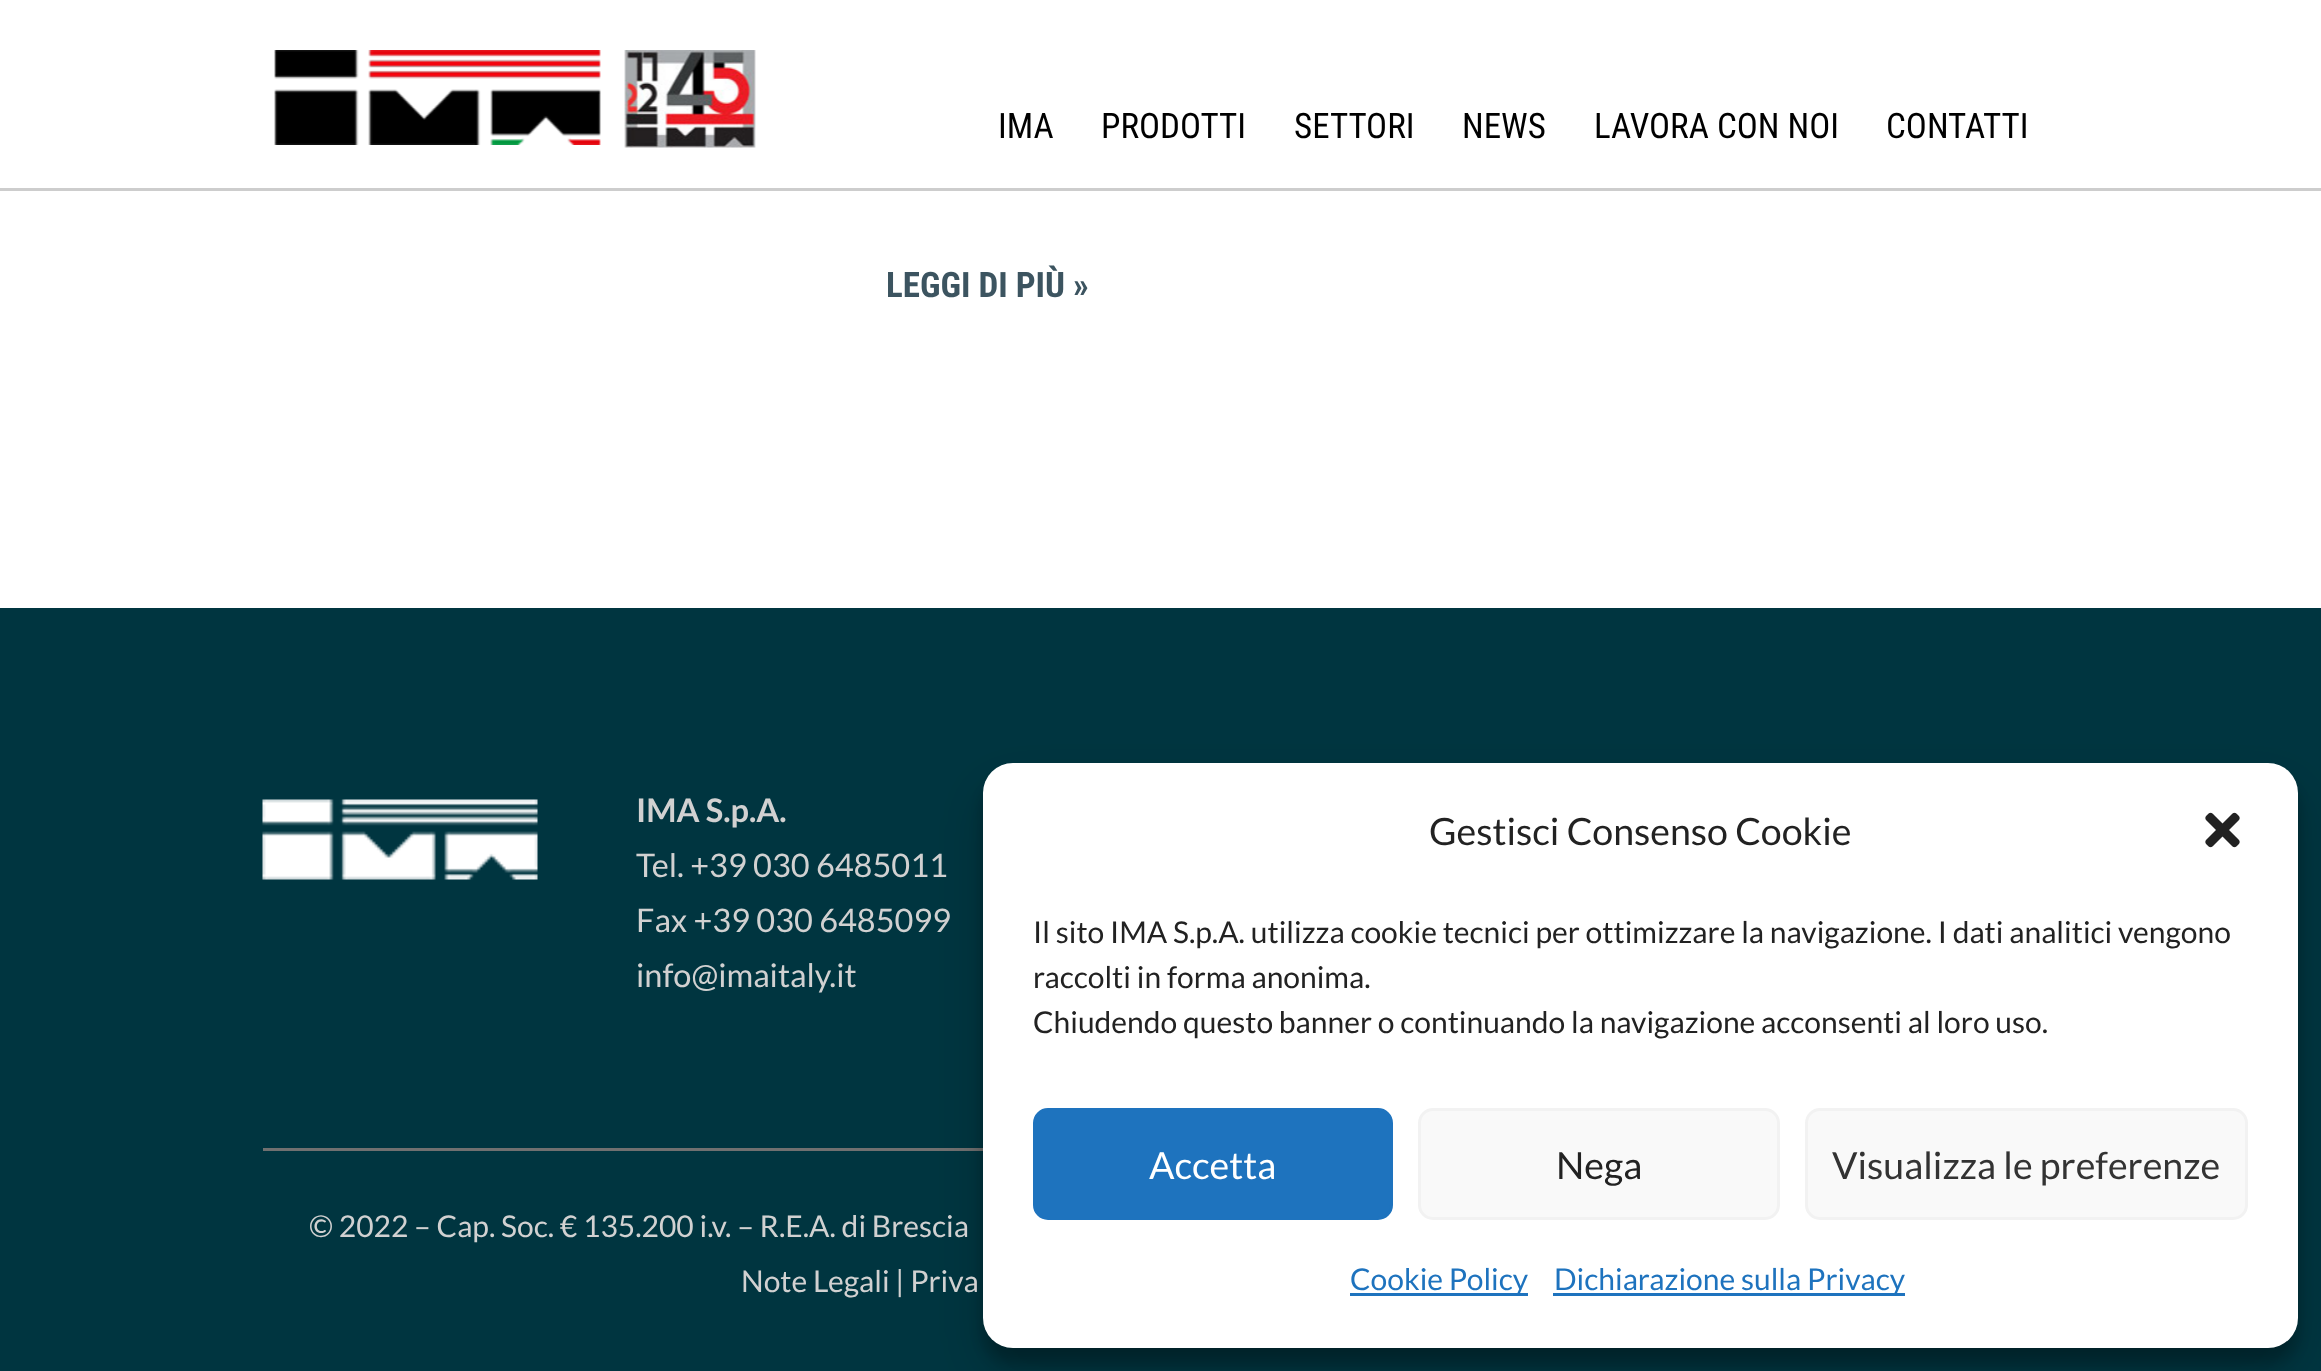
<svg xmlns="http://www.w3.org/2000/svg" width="2321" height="1371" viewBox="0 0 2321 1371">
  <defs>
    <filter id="blur1" x="-50%" y="-200%" width="200%" height="500%"><feGaussianBlur stdDeviation="7.5"/></filter>
    <filter id="blur2" x="-50%" y="-200%" width="200%" height="500%"><feGaussianBlur stdDeviation="25"/></filter>
  </defs>
  <rect width="100%" height="100%" fill="#ffffff"/>
  <rect x="0" y="188" width="2321" height="3" fill="#cdcdcd"/>
  <image x="274" y="50" width="327" height="95" href="img1.png"/>
  <image x="624" y="50" width="132" height="98" href="img2.png"/>
  <text x="998" y="138" font-family="Roboto Condensed" font-size="35" fill="#000000">IMA</text>
  <text x="1101" y="138" font-family="Roboto Condensed" font-size="35" fill="#000000">PRODOTTI</text>
  <text x="1294" y="138" font-family="Roboto Condensed" font-size="35" fill="#000000">SETTORI</text>
  <text x="1462" y="138" font-family="Roboto Condensed" font-size="35" fill="#000000">NEWS</text>
  <text x="1594" y="138" font-family="Roboto Condensed" font-size="35" fill="#000000">LAVORA CON NOI</text>
  <text x="1886" y="138" font-family="Roboto Condensed" font-size="35" fill="#000000">CONTATTI</text>
  <text x="886" y="297" font-family="Roboto Condensed" font-size="35" font-weight="bold" fill="#3c5460">LEGGI DI PIÙ »</text>
  <rect x="0" y="608" width="2321" height="763" fill="#003540"/>
  <image x="262" y="799" width="276" height="81" href="img3.png"/>
  <text x="636" y="822" font-family="Lato" font-size="32.5" font-weight="bold" fill="#d1d1d1">IMA S.p.A.</text>
  <text x="636" y="877" font-family="Lato" font-size="32.5" fill="#d1d1d1">Tel. +39 030 6485011</text>
  <text x="636" y="932" font-family="Lato" font-size="32.5" fill="#d1d1d1">Fax +39 030 6485099</text>
  <text x="636" y="987" font-family="Lato" font-size="32.5" fill="#d1d1d1">info@imaitaly.it</text>
  <rect x="263" y="1148" width="720" height="3" fill="#707070"/>
  <rect x="983" y="778" width="1315" height="585" rx="30" fill="#000000" fill-opacity="0.23" filter="url(#blur1)"/>
  <rect x="983" y="788" width="1315" height="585" rx="30" fill="#000000" fill-opacity="0.19" filter="url(#blur2)"/>
  <rect x="983" y="763" width="1315" height="585" rx="30" fill="#ffffff"/>
  <text x="1429" y="845" font-family="Lato" font-size="37.5" fill="#222222">Gestisci Consenso Cookie</text>
  <image x="2205" y="812" width="35" height="36" href="img4.png"/>
  <text x="1033" y="943" font-family="Lato" font-size="30" fill="#222222">Il sito IMA S.p.A. utilizza cookie tecnici per ottimizzare la navigazione. I dati analitici vengono</text>
  <text x="1033" y="988" font-family="Lato" font-size="30" fill="#222222">raccolti in forma anonima.</text>
  <text x="1033" y="1033" font-family="Lato" font-size="30" fill="#222222">Chiudendo questo banner o continuando la navigazione acconsenti al loro uso.</text>
  <rect x="1034.5" y="1109.5" width="357" height="109" rx="13.5" fill="#1e73be" stroke="#1e73be" stroke-width="3"/>
  <text x="1149" y="1179" font-family="Lato" font-size="37.5" fill="#ffffff">Accetta</text>
  <rect x="1419.5" y="1109.5" width="359" height="109" rx="13.5" fill="#f9f9f9" stroke="#f2f2f2" stroke-width="3"/>
  <text x="1556" y="1179" font-family="Lato" font-size="37.5" fill="#222222">Nega</text>
  <rect x="1806.5" y="1109.5" width="440" height="109" rx="13.5" fill="#f9f9f9" stroke="#f2f2f2" stroke-width="3"/>
  <text x="1832" y="1179" font-family="Lato" font-size="37.5" fill="#333333">Visualizza le preferenze</text>
  <rect x="1350" y="1293" width="178" height="3" fill="#1e73be"/>
  <text x="1350" y="1290" font-family="Lato" font-size="30" fill="#1e73be">Cookie Policy</text>
  <rect x="1553" y="1293" width="352" height="3" fill="#1e73be"/>
  <text x="1554" y="1290" font-family="Lato" font-size="30" fill="#1e73be">Dichiarazione sulla Privacy</text>
  <text x="309" y="1237" font-family="Lato" font-size="30" fill="#d1d1d1">© 2022 – Cap. Soc. € 135.200 i.v. – R.E.A. di Brescia</text>
  <text x="741" y="1292" font-family="Lato" font-size="30" fill="#d1d1d1">Note Legali | Priva</text>
</svg>
